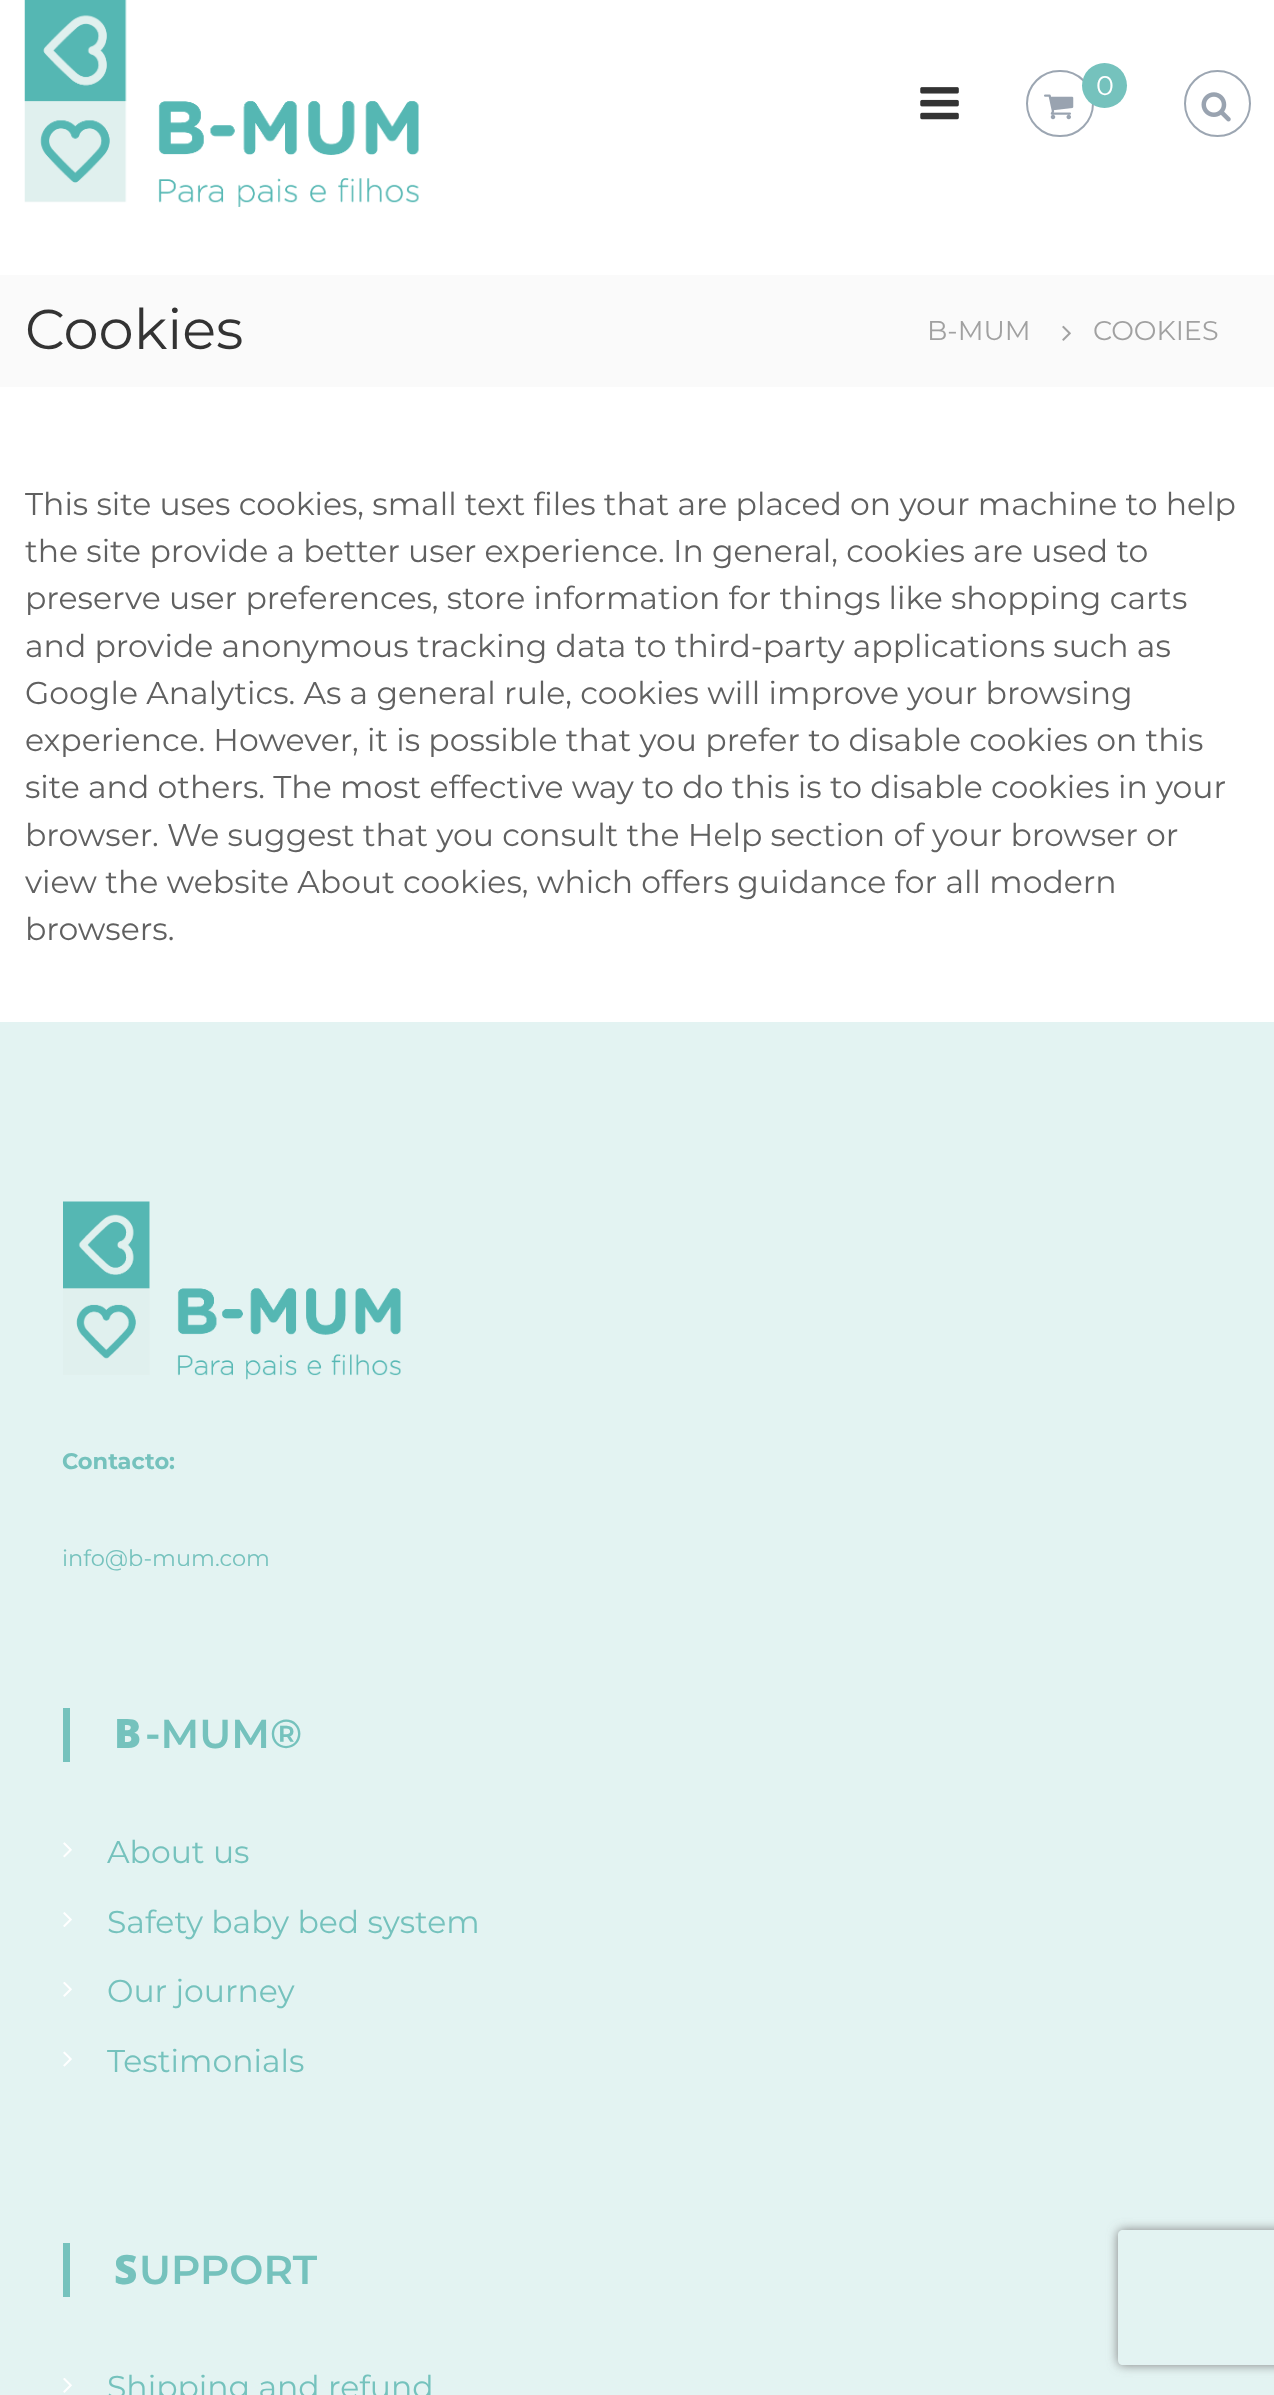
<svg xmlns="http://www.w3.org/2000/svg" width="1274" height="2395" viewBox="0 0 1274 2395">
  <defs>
    <clipPath id="clip1"><path d="M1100 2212H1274V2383H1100ZM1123 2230H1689C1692 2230 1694 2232 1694 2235V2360C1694 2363 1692 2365 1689 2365H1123C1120 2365 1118 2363 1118 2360V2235C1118 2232 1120 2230 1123 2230Z" clip-rule="evenodd"/></clipPath>
    <filter id="blur1" x="-50%" y="-200%" width="200%" height="500%"><feGaussianBlur stdDeviation="5.5"/></filter>
  </defs>
  <rect width="100%" height="100%" fill="#ffffff"/>
  <image x="24" y="0" width="395" height="207" href="img1.png"/>
  <image x="920" y="87" width="39" height="33" href="img2.png"/>
  <rect x="1027" y="71" width="66" height="65" rx="32.5" fill="none" stroke="#9ca6b2" stroke-width="2"/>
  <circle cx="1104.5" cy="85.5" r="22.5" fill="#75c2bd"/>
  <text x="1096" y="95" font-family="Montserrat" font-size="27" fill="#ffffff">0</text>
  <image x="1044" y="94" width="30" height="26" href="img3.png"/>
  <circle cx="1217.5" cy="103.5" r="32.5" fill="none" stroke="#9ca6b2" stroke-width="2"/>
  <image x="1201" y="92" width="30" height="30" href="img4.png"/>
  <rect x="0" y="275" width="1274" height="112" fill="#fafafa"/>
  <text x="25" y="349" font-family="Montserrat" font-size="56" fill="#333333">Cookies</text>
  <text x="927" y="340" font-family="Montserrat" font-size="27" fill="#a1a1a1">B-MUM</text>
  <image x="1062" y="325" width="9" height="16" href="img5.png"/>
  <text x="1093" y="340" font-family="Montserrat" font-size="27" fill="#a1a1a1">COOKIES</text>
  <text x="25" y="515" font-family="Montserrat" font-size="31.5" fill="#606060">This site uses cookies, small text files that are placed on your machine to help</text>
  <text x="25" y="562" font-family="Montserrat" font-size="31.5" fill="#606060">the site provide a better user experience. In general, cookies are used to</text>
  <text x="25" y="609" font-family="Montserrat" font-size="31.5" fill="#606060">preserve user preferences, store information for things like shopping carts</text>
  <text x="25" y="657" font-family="Montserrat" font-size="31.5" fill="#606060">and provide anonymous tracking data to third-party applications such as</text>
  <text x="25" y="704" font-family="Montserrat" font-size="31.5" fill="#606060">Google Analytics. As a general rule, cookies will improve your browsing</text>
  <text x="25" y="751" font-family="Montserrat" font-size="31.5" fill="#606060">experience. However, it is possible that you prefer to disable cookies on this</text>
  <text x="25" y="798" font-family="Montserrat" font-size="31.5" fill="#606060">site and others. The most effective way to do this is to disable cookies in your</text>
  <text x="25" y="846" font-family="Montserrat" font-size="31.5" fill="#606060">browser. We suggest that you consult the Help section of your browser or</text>
  <text x="25" y="893" font-family="Montserrat" font-size="31.5" fill="#606060">view the website About cookies, which offers guidance for all modern</text>
  <text x="25" y="940" font-family="Montserrat" font-size="31.5" fill="#606060">browsers.</text>
  <rect x="0" y="1022" width="1274" height="1373" fill="#e3f3f2"/>
  <image x="63" y="1201" width="338" height="179" href="img6.png"/>
  <text x="62" y="1469" font-family="Montserrat" font-size="22.5" font-weight="bold" fill="#75c2bd">Contacto:</text>
  <text x="62" y="1566" font-family="Montserrat" font-size="22.5" fill="#75c2bd">info@b-mum.com</text>
  <rect x="63" y="1708" width="7" height="54" fill="#75c2bd"/>
  <text x="114" y="1748" font-family="Noto Sans" font-size="40.5" font-weight="900" fill="#75c2bd">B</text>
  <text x="145" y="1748" font-family="Montserrat" font-size="40.5" font-weight="600" fill="#75c2bd">-MUM®</text>
  <image x="63" y="1842" width="9" height="16" href="img7.png"/>
  <text x="107" y="1863" font-family="Montserrat" font-size="31.5" fill="#75c2bd">About us</text>
  <image x="63" y="1912" width="9" height="15" href="img8.png"/>
  <text x="107" y="1933" font-family="Montserrat" font-size="31.5" fill="#75c2bd">Safety baby bed system</text>
  <image x="63" y="1982" width="9" height="15" href="img9.png"/>
  <text x="107" y="2002" font-family="Montserrat" font-size="31.5" fill="#75c2bd">Our journey</text>
  <image x="63" y="2051" width="9" height="16" href="img10.png"/>
  <text x="107" y="2072" font-family="Montserrat" font-size="31.5" fill="#75c2bd">Testimonials</text>
  <rect x="63" y="2243" width="7" height="54" fill="#75c2bd"/>
  <text x="114" y="2284" font-family="Noto Sans" font-size="40.5" font-weight="900" fill="#75c2bd">S</text>
  <text x="139" y="2284" font-family="Montserrat" font-size="40.5" font-weight="600" fill="#75c2bd">UPPORT</text>
  <image x="63" y="2378" width="9" height="15" href="img9.png"/>
  <text x="107" y="2398" font-family="Montserrat" font-size="31.5" fill="#75c2bd">Shipping and refund</text>
  <g clip-path="url(#clip1)">
    <rect x="1118" y="2230" width="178" height="135" rx="5" fill="#808080" filter="url(#blur1)"/>
  </g>
</svg>
